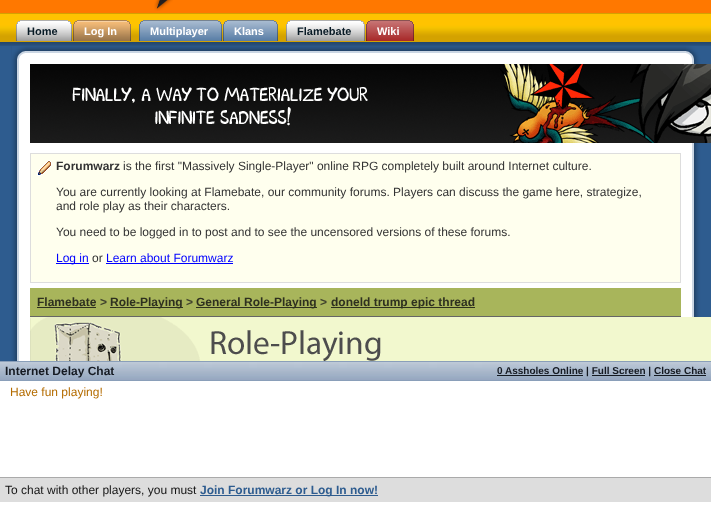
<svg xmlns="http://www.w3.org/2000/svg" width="711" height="511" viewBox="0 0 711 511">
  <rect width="100%" height="100%" fill="#2e5c8f"/>
  <image x="0" y="0" width="711" height="46" href="img1.png"/>
  <image x="154" y="0" width="19" height="11" href="img2.png"/>
  <image x="16" y="20" width="6" height="21" href="img3.png"/>
  <image x="22" y="20" width="50" height="21" href="img4.png"/>
  <text x="27" y="35" font-family="Liberation Sans" font-size="11" font-weight="bold" fill="#081a25">Home</text>
  <image x="73" y="20" width="6" height="21" href="img5.png"/>
  <image x="79" y="20" width="52" height="21" href="img6.png"/>
  <text x="84" y="35" font-family="Liberation Sans" font-size="11" font-weight="bold" fill="#ffffff">Log In</text>
  <image x="139" y="20" width="6" height="21" href="img7.png"/>
  <image x="145" y="20" width="78" height="21" href="img8.png"/>
  <text x="150" y="35" font-family="Liberation Sans" font-size="11" font-weight="bold" fill="#ffffff">Multiplayer</text>
  <image x="223" y="20" width="6" height="21" href="img7.png"/>
  <image x="229" y="20" width="49" height="21" href="img9.png"/>
  <text x="234" y="35" font-family="Liberation Sans" font-size="11" font-weight="bold" fill="#ffffff">Klans</text>
  <image x="286" y="20" width="6" height="21" href="img3.png"/>
  <image x="292" y="20" width="74" height="21" href="img10.png"/>
  <text x="297" y="35" font-family="Liberation Sans" font-size="11" font-weight="bold" fill="#081a25">Flamebate</text>
  <image x="366" y="20" width="6" height="21" href="img11.png"/>
  <image x="372" y="20" width="42" height="21" href="img12.png"/>
  <text x="377" y="35" font-family="Liberation Sans" font-size="11" font-weight="bold" fill="#ffffff">Wiki</text>
  <rect x="19" y="59" width="673" height="302" fill="#ffffff"/>
  <image x="10" y="46" width="9" height="315" href="img13.png"/>
  <image x="12" y="46" width="674" height="13" href="img14.png"/>
  <image x="686" y="46" width="15" height="18" href="img15.png"/>
  <image x="692" y="143" width="9" height="174" href="img16.png"/>
  <image x="30" y="64" width="681" height="79" href="img17.png"/>
  <rect x="31" y="154" width="649" height="128" fill="#ffffee"/>
  <image x="37" y="160" width="15" height="16" href="img18.png"/>
  <rect x="30.5" y="153.5" width="650" height="129" fill="none" stroke="#dddddd"/>
  <text x="56" y="170" font-family="Liberation Sans" font-size="12" font-weight="bold" fill="#333333">Forumwarz</text>
  <text x="123" y="170" font-family="Liberation Sans" font-size="12" fill="#333333">is the first "Massively Single-Player" online RPG completely built around Internet culture.</text>
  <text x="56" y="196" font-family="Liberation Sans" font-size="12" fill="#333333">You are currently looking at Flamebate, our community forums. Players can discuss the game here, strategize,</text>
  <text x="56" y="210" font-family="Liberation Sans" font-size="12" fill="#333333">and role play as their characters.</text>
  <text x="56" y="236" font-family="Liberation Sans" font-size="12" fill="#333333">You need to be logged in to post and to see the uncensored versions of these forums.</text>
  <rect x="56" y="263" width="33" height="1" fill="#0000ff"/>
  <text x="56" y="262" font-family="Liberation Sans" font-size="12" fill="#0000ff">Log in</text>
  <text x="92" y="262" font-family="Liberation Sans" font-size="12" fill="#333333">or</text>
  <text x="106" y="262" font-family="Liberation Sans" font-size="12" fill="#0000ff">Learn about Forumwarz</text>
  <rect x="106" y="263" width="127" height="1" fill="#0000ff"/>
  <rect x="30" y="288" width="651" height="28" fill="#a8b55b"/>
  <rect x="30" y="316" width="651" height="1" fill="#666666"/>
  <text x="37" y="306" font-family="Liberation Sans" font-size="12" font-weight="bold" fill="#2e301f">Flamebate</text>
  <rect x="37" y="307" width="59" height="1" fill="#2e301f"/>
  <text x="100" y="306" font-family="Liberation Sans" font-size="12" font-weight="bold" fill="#40432d">&gt;</text>
  <rect x="110" y="307" width="73" height="1" fill="#2e301f"/>
  <text x="110" y="306" font-family="Liberation Sans" font-size="12" font-weight="bold" fill="#2e301f">Role-Playing</text>
  <text x="186" y="306" font-family="Liberation Sans" font-size="12" font-weight="bold" fill="#40432d">&gt;</text>
  <rect x="196" y="307" width="121" height="1" fill="#2e301f"/>
  <text x="196" y="306" font-family="Liberation Sans" font-size="12" font-weight="bold" fill="#2e301f">General Role-Playing</text>
  <text x="320" y="306" font-family="Liberation Sans" font-size="12" font-weight="bold" fill="#40432d">&gt;</text>
  <rect x="331" y="307" width="144" height="1" fill="#2e301f"/>
  <text x="331" y="306" font-family="Liberation Sans" font-size="12" font-weight="bold" fill="#2e301f">doneld trump epic thread</text>
  <image x="30" y="317" width="681" height="44" href="img19.png"/>
  <rect x="0" y="381" width="711" height="130" fill="#ffffff"/>
  <image x="0" y="362" width="711" height="18" href="img20.png"/>
  <rect x="0" y="361" width="711" height="1" fill="#8a9fb9"/>
  <rect x="0" y="380" width="711" height="1" fill="#8a9fb9"/>
  <text x="5" y="375" font-family="Liberation Sans" font-size="12" font-weight="bold" fill="#151a22">Internet Delay Chat</text>
  <rect x="497" y="375" width="86" height="1" fill="#151a22"/>
  <text x="497" y="374" font-family="Liberation Sans" font-size="10" font-weight="bold" fill="#151a22">0 Assholes Online | Full Screen | Close Chat</text>
  <rect x="592" y="375" width="53" height="1" fill="#151a22"/>
  <rect x="654" y="375" width="52" height="1" fill="#151a22"/>
  <text x="10" y="396" font-family="Liberation Sans" font-size="12" fill="#b46c00">Have fun playing!</text>
  <rect x="0" y="478" width="711" height="24" fill="#dddddd"/>
  <rect x="0" y="477" width="711" height="1" fill="#aaaaaa"/>
  <text x="5" y="494" font-family="Liberation Sans" font-size="12" fill="#151515">To chat with other players, you must</text>
  <rect x="200" y="495" width="178" height="1" fill="#2e5c8f"/>
  <text x="200" y="494" font-family="Liberation Sans" font-size="12" font-weight="bold" fill="#2e5c8f">Join Forumwarz or Log In now!</text>
</svg>
